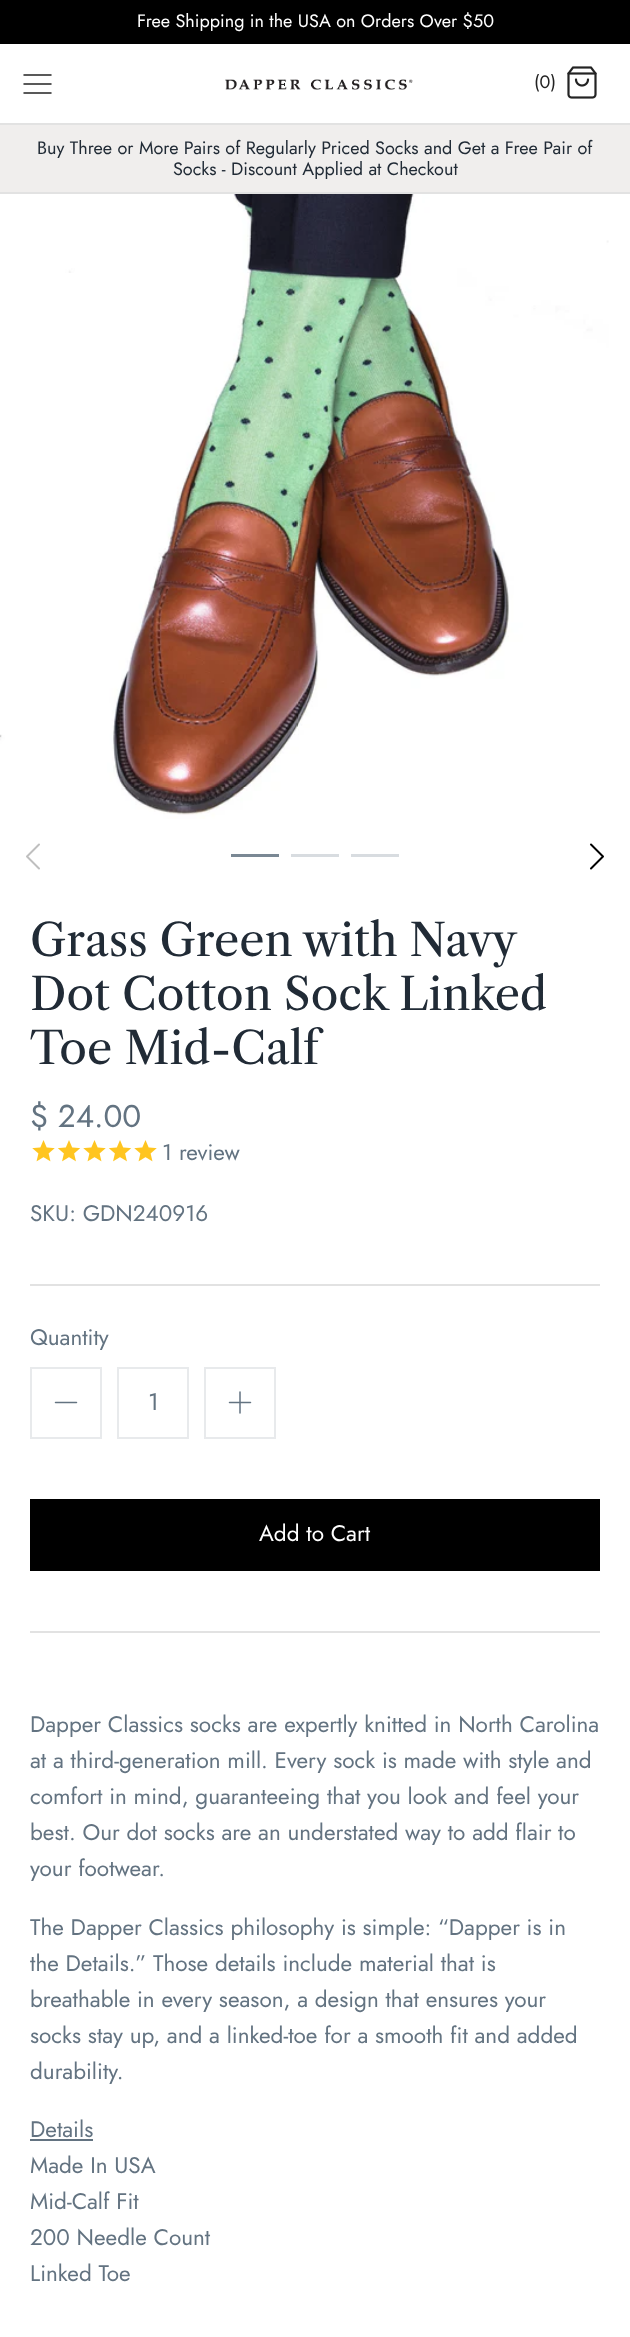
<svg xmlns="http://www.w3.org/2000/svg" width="630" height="2337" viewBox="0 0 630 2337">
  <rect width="100%" height="100%" fill="#ffffff"/>
  <rect x="0" y="0" width="630" height="44" fill="#000000"/>
  <text x="137" y="27" font-family="Jost" font-size="18" fill="#ffffff">Free Shipping in the USA on Orders Over $50</text>
  <rect x="0" y="123" width="630" height="2" fill="#e2e2e2"/>
  <path d="M24 84H51M24 75H51M24 93H51" fill="none" stroke="#232323" stroke-width="1.5" stroke-linecap="round" stroke-linejoin="round"/>
  <image x="225" y="79" width="188" height="11" href="img1.png"/>
  <text x="534" y="88" font-family="Jost" font-size="18" fill="#232323">(0)</text>
  <image x="567" y="66" width="30" height="33" href="img2.png"/>
  <rect x="0" y="125" width="630" height="67" fill="#f0eeed"/>
  <rect x="0" y="192" width="630" height="2" fill="#e2e2e2"/>
  <text x="37" y="154" font-family="Jost" font-size="18" fill="#212b36">Buy Three or More Pairs of Regularly Priced Socks and Get a Free Pair of</text>
  <text x="173" y="175" font-family="Jost" font-size="18" fill="#212b36">Socks - Discount Applied at Checkout</text>
  <image x="0" y="194" width="609" height="625" href="img3.png"/>
  <path d="M39 868.5L27 856.5L39 844.5" fill="none" stroke="#bfbfbf" stroke-width="2" stroke-linecap="round" stroke-linejoin="round"/>
  <path d="M591 868.5L603 856.5L591 844.5" fill="none" stroke="#000000" stroke-width="2" stroke-linecap="round" stroke-linejoin="round"/>
  <rect x="231" y="854" width="48" height="3" fill="#7a8894"/>
  <rect x="291" y="854" width="48" height="3" fill="#d8dce0"/>
  <rect x="351" y="854" width="48" height="3" fill="#d8dce0"/>
  <rect x="30" y="1284" width="570" height="2" fill="#e2e2e2"/>
  <text x="30" y="956" word-spacing="-0.5" font-family="Libre Caslon Text" font-size="45" fill="#212b36">Grass Green with Navy</text>
  <text x="30" y="1010" font-family="Libre Caslon Text" font-size="45" fill="#212b36">Dot Cotton Sock Linked</text>
  <text x="30" y="1064" font-family="Libre Caslon Text" font-size="45" fill="#212b36">Toe Mid-Calf</text>
  <text x="30" y="1127" font-family="Jost" font-size="31.5" fill="#637381">$ 24.00</text>
  <image x="32" y="1140" width="23" height="22" href="img4.png"/>
  <image x="57" y="1140" width="24" height="22" href="img5.png"/>
  <image x="83" y="1140" width="23" height="22" href="img4.png"/>
  <image x="108" y="1140" width="24" height="22" href="img5.png"/>
  <image x="134" y="1140" width="23" height="22" href="img4.png"/>
  <text x="162" y="1160" font-family="Jost" font-size="22.5" fill="#637381">1 review</text>
  <text x="30" y="1221" font-family="Jost" font-size="22.5" fill="#637381">SKU: GDN240916</text>
  <rect x="30" y="1631" width="570" height="2" fill="#e2e2e2"/>
  <text x="30" y="1345" font-family="Jost" font-size="22.5" fill="#637381">Quantity</text>
  <rect x="31" y="1368" width="70" height="70" fill="none" stroke="#e8eaec" stroke-width="2"/>
  <path d="M55.5 1402.5H76.5" fill="none" stroke="#637381" stroke-width="1.5" stroke-linecap="round" stroke-linejoin="round"/>
  <rect x="118" y="1368" width="70" height="70" fill="none" stroke="#e8eaec" stroke-width="2"/>
  <text x="148" y="1410" font-family="Jost" font-size="24" fill="#637381">1</text>
  <rect x="205" y="1368" width="70" height="70" fill="none" stroke="#e8eaec" stroke-width="2"/>
  <path d="M240 1392V1413M229.5 1402.5H250.5" fill="none" stroke="#637381" stroke-width="1.5" stroke-linecap="round" stroke-linejoin="round"/>
  <rect x="30" y="1499" width="570" height="72" fill="#000000"/>
  <text x="259" y="1541" font-family="Jost" font-size="22.5" fill="#ffffff">Add to Cart</text>
  <text x="30" y="1732" font-family="Jost" font-size="22.5" fill="#637381">Dapper Classics socks are expertly knitted in North Carolina</text>
  <text x="30" y="1768" font-family="Jost" font-size="22.5" fill="#637381">at a third-generation mill. Every sock is made with style and</text>
  <text x="30" y="1804" font-family="Jost" font-size="22.5" fill="#637381">comfort in mind, guaranteeing that you look and feel your</text>
  <text x="30" y="1840" font-family="Jost" font-size="22.5" fill="#637381">best. Our dot socks are an understated way to add flair to</text>
  <text x="30" y="1876" font-family="Jost" font-size="22.5" fill="#637381">your footwear.</text>
  <text x="30" y="1935" font-family="Jost" font-size="22.5" fill="#637381">The Dapper Classics philosophy is simple: “Dapper is in</text>
  <text x="30" y="1971" font-family="Jost" font-size="22.5" fill="#637381">the Details.” Those details include material that is</text>
  <text x="30" y="2007" font-family="Jost" font-size="22.5" fill="#637381">breathable in every season, a design that ensures your</text>
  <text x="30" y="2043" font-family="Jost" font-size="22.5" fill="#637381">socks stay up, and a linked-toe for a smooth fit and added</text>
  <text x="30" y="2079" font-family="Jost" font-size="22.5" fill="#637381">durability.</text>
  <text x="30" y="2137" font-family="Jost" font-size="22.5" fill="#637381">Details</text>
  <rect x="30" y="2139" width="63" height="2" fill="#637381"/>
  <text x="30" y="2173" font-family="Jost" font-size="22.5" fill="#637381">Made In USA</text>
  <text x="30" y="2209" font-family="Jost" font-size="22.5" fill="#637381">Mid-Calf Fit</text>
  <text x="30" y="2245" font-family="Jost" font-size="22.5" fill="#637381">200 Needle Count</text>
  <text x="30" y="2281" font-family="Jost" font-size="22.5" fill="#637381">Linked Toe</text>
</svg>
